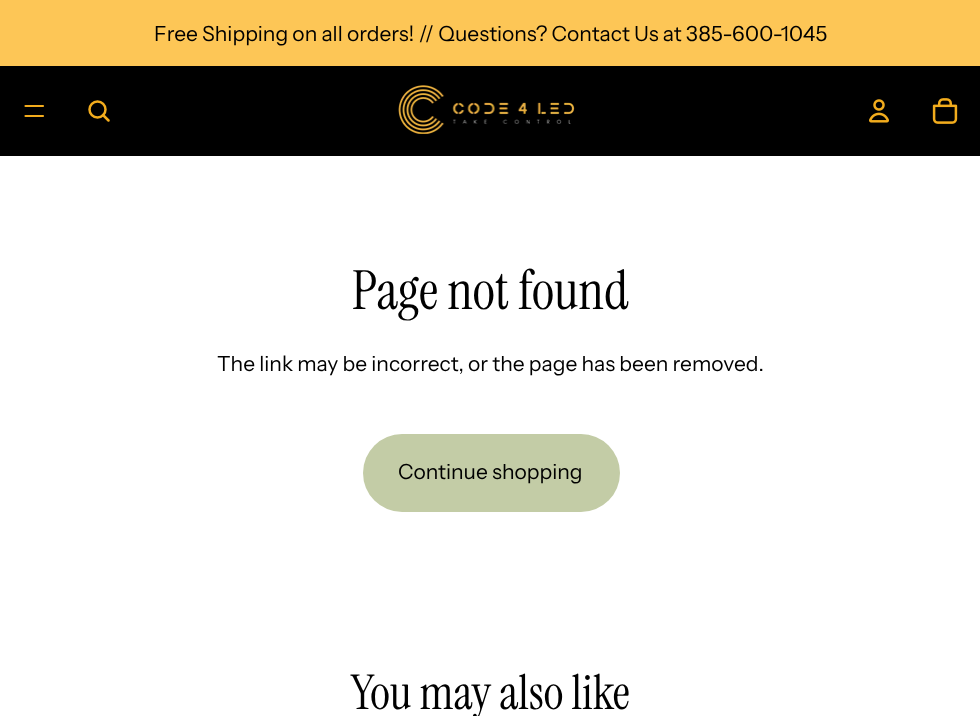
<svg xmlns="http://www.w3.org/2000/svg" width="980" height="716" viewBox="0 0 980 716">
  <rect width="100%" height="100%" fill="#ffffff"/>
  <rect x="0" y="0" width="980" height="66" fill="#fdc656"/>
  <text x="154" y="41" font-family="Instrument Sans" font-size="21" fill="#000000">Free Shipping on all orders! // Questions? Contact Us at 385-600-1045</text>
  <rect x="0" y="66" width="980" height="90" fill="#000000"/>
  <path d="M25.5 106H43M25.5 116H43" fill="none" stroke="#f2ac1d" stroke-width="2.2" stroke-linecap="round"/>
  <circle cx="97.5" cy="109.5" r="8" fill="none" stroke="#f2ac1d" stroke-width="2.5"/>
  <path d="M103 115L108.5 120.5" fill="none" stroke="#f2ac1d" stroke-width="2.5" stroke-linecap="round" stroke-linejoin="round"/>
  <image x="398" y="85" width="177" height="49" href="img1.png"/>
  <image x="869" y="99" width="20" height="24" href="img2.png"/>
  <image x="932" y="98" width="26" height="26" href="img3.png"/>
  <text x="352" y="309" font-family="Instrument Serif" font-size="54" fill="#000000">Page not found</text>
  <text x="217" y="371" font-family="Instrument Sans" font-size="21" fill="#000000">The link may be incorrect, or the page has been removed.</text>
  <rect x="363" y="434" width="257" height="78" rx="39" fill="#c3cca6"/>
  <text x="398" y="479" font-family="Instrument Sans" font-size="21" fill="#000000">Continue shopping</text>
  <text x="351" y="709" font-family="Instrument Serif" font-size="48" fill="#000000">You may also like</text>
</svg>
